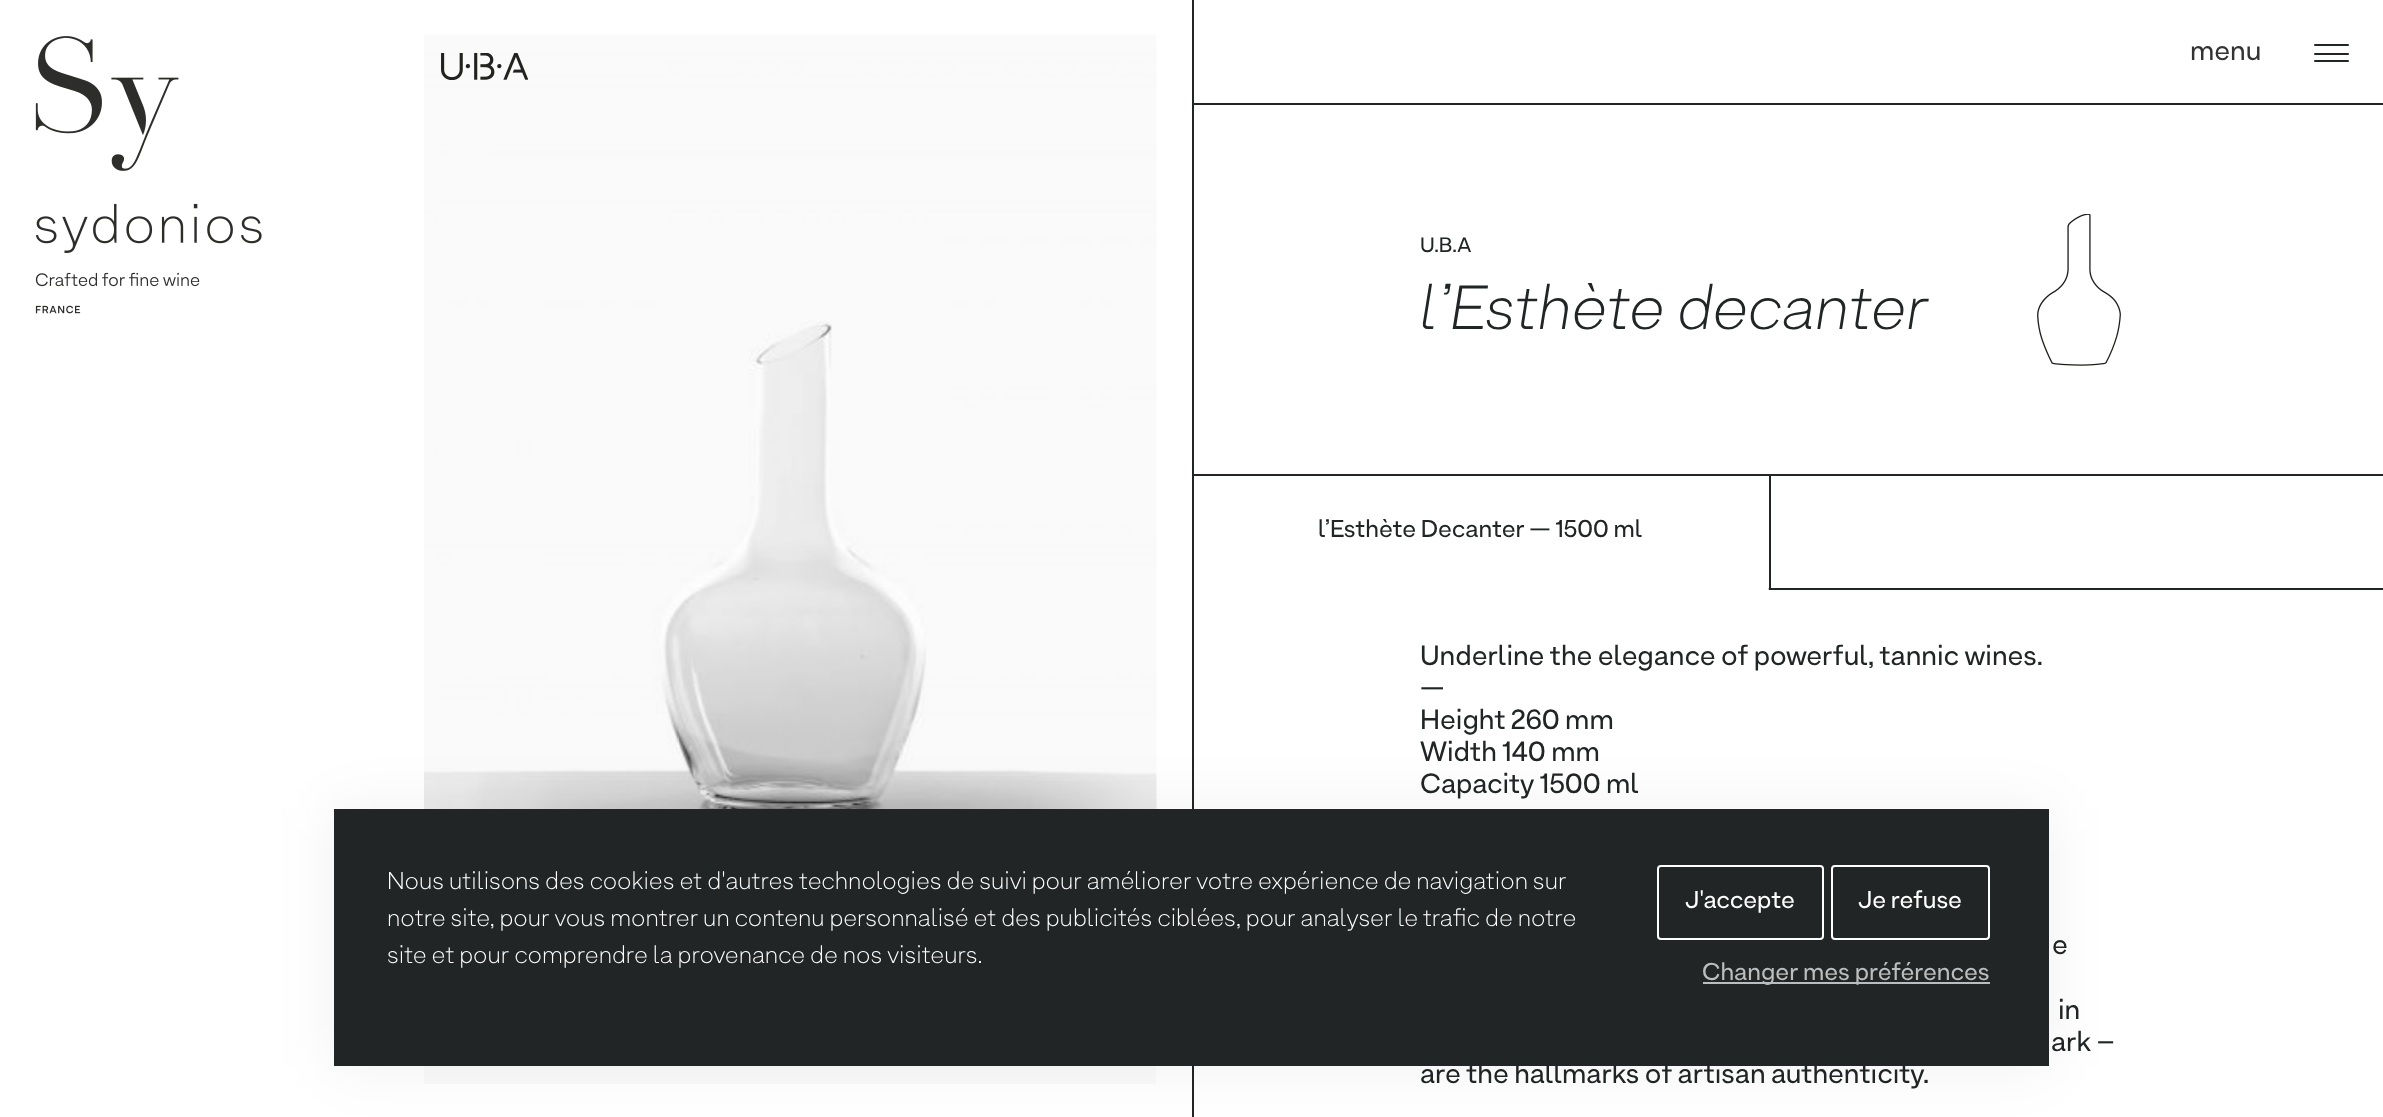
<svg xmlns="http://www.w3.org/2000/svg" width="2383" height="1117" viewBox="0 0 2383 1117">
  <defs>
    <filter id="blur1" x="-50%" y="-200%" width="200%" height="500%"><feGaussianBlur stdDeviation="30"/></filter>
  </defs>
  <rect width="100%" height="100%" fill="#ffffff"/>
  <image x="35" y="36" width="227" height="278" href="img1.png"/>
  <text x="2190" y="60" font-family="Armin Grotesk" font-size="28" fill="#333333">menu</text>
  <rect x="2314" y="44" width="35" height="2" rx="1" fill="#212525"/>
  <rect x="2314" y="53" width="35" height="2" rx="1" fill="#212525"/>
  <rect x="2314" y="60" width="35" height="2" rx="1" fill="#212525"/>
  <rect x="1194" y="103" width="1189" height="2" fill="#212525"/>
  <rect x="1192" y="474" width="1191" height="2" fill="#212525"/>
  <rect x="1768" y="588" width="615" height="2" fill="#212525"/>
  <rect x="1192" y="588" width="577" height="2" rx="1" fill="#ffffff"/>
  <rect x="1192" y="0" width="2" height="1117" fill="#212525"/>
  <image x="424" y="35" width="733" height="774" href="img2.png"/>
  <image x="441" y="53" width="87" height="27" href="img3.png"/>
  <rect x="424" y="1066" width="732" height="18" fill="#fafafa"/>
  <text x="1420" y="252" font-family="Armin Grotesk" font-size="21" fill="#212525">U.B.A</text>
  <text x="1420" y="329" font-family="Armin Grotesk" font-size="63" font-weight="100" font-style="italic" fill="#212525">l’Esthète decanter</text>
  <image x="2037" y="214" width="84" height="152" href="img4.png"/>
  <rect x="1769" y="474" width="2" height="116" fill="#212525"/>
  <text x="1318" y="537" font-family="Armin Grotesk" font-size="24.5" fill="#212525">l’Esthète Decanter — 1500 ml</text>
  <text x="1420" y="665" font-family="Armin Grotesk" font-size="28" fill="#212525">Underline the elegance of powerful, tannic wines.</text>
  <text x="1420" y="697" font-family="Armin Grotesk" font-size="28" fill="#212525">—</text>
  <text x="1420" y="729" font-family="Armin Grotesk" font-size="28" fill="#212525">Height 260 mm</text>
  <text x="1420" y="761" font-family="Armin Grotesk" font-size="28" fill="#212525">Width 140 mm</text>
  <text x="1420" y="793" font-family="Armin Grotesk" font-size="28" fill="#212525">Capacity 1500 ml</text>
  <text x="2052" y="954" font-family="Armin Grotesk" font-size="28" fill="#212525">e</text>
  <text x="2058" y="1019" font-family="Armin Grotesk" font-size="28" fill="#212525">in</text>
  <text x="2051" y="1051" font-family="Armin Grotesk" font-size="28" fill="#212525">ark –</text>
  <text x="1420" y="1083" font-family="Armin Grotesk" font-size="28" fill="#212525">are the hallmarks of artisan authenticity.</text>
  <rect x="334" y="809" width="1715" height="257" fill="#000000" fill-opacity="0.06" filter="url(#blur1)"/>
  <rect x="334" y="809" width="1715" height="257" fill="#212525"/>
  <text x="387" y="889" font-family="Armin Grotesk" font-size="24.5" font-weight="100" fill="#ffffff">Nous utilisons des cookies et d'autres technologies de suivi pour améliorer votre expérience de navigation sur</text>
  <text x="387" y="926" font-family="Armin Grotesk" font-size="24.5" font-weight="100" fill="#ffffff">notre site, pour vous montrer un contenu personnalisé et des publicités ciblées, pour analyser le trafic de notre</text>
  <text x="387" y="963" font-family="Armin Grotesk" font-size="24.5" font-weight="100" fill="#ffffff">site et pour comprendre la provenance de nos visiteurs.</text>
  <rect x="1658" y="866" width="165" height="73" rx="3" fill="none" stroke="#ffffff" stroke-width="2"/>
  <text x="1685" y="908" font-family="Armin Grotesk" font-size="24.5" fill="#ffffff">J'accepte</text>
  <rect x="1832" y="866" width="157" height="73" rx="3" fill="none" stroke="#ffffff" stroke-width="2"/>
  <text x="1858" y="908" font-family="Armin Grotesk" font-size="24.5" fill="#ffffff">Je refuse</text>
  <rect x="1703" y="982" width="287" height="2" fill="#bcbebe"/>
  <text x="1702" y="980" font-family="Armin Grotesk" font-size="24.5" fill="#bcbebe">Changer mes préférences</text>
</svg>
